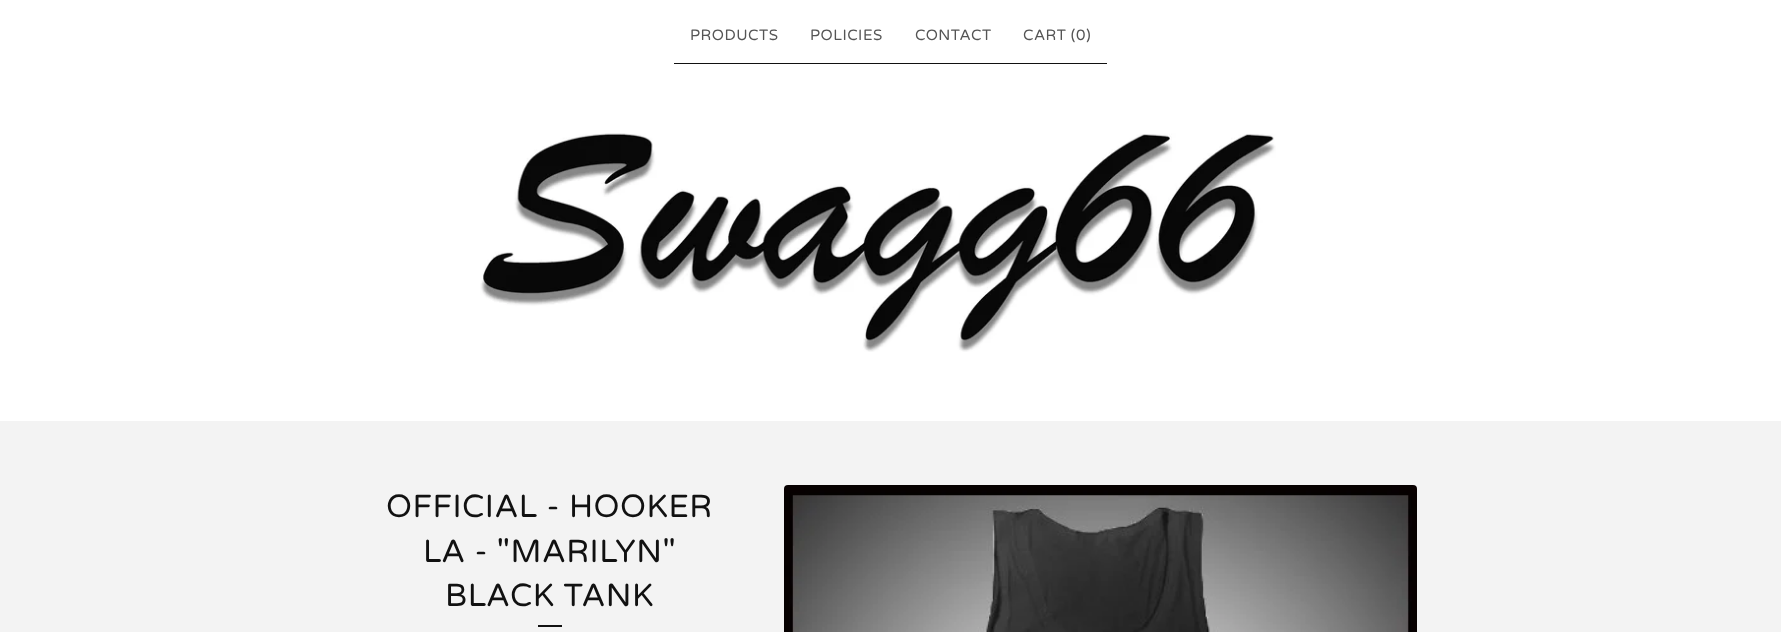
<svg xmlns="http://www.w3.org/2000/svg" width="1781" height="632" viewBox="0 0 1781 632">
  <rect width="100%" height="100%" fill="#ffffff"/>
  <rect x="674" y="63" width="433" height="1" fill="#111111"/>
  <text x="690" y="40" font-family="Varela Round" font-size="15" letter-spacing="0.5" fill="#555555">PRODUCTS</text>
  <text x="810" y="40" font-family="Varela Round" font-size="15" letter-spacing="0.5" fill="#555555">POLICIES</text>
  <text x="915" y="40" font-family="Varela Round" font-size="15" letter-spacing="0.5" fill="#555555">CONTACT</text>
  <text x="1023" y="40" font-family="Varela Round" font-size="15" letter-spacing="0.5" fill="#555555">CART (0)</text>
  <image x="480" y="133" width="796" height="219" href="img1.png"/>
  <rect x="0" y="421" width="1781" height="211" fill="#f3f3f3"/>
  <text x="386" y="517" font-family="Varela Round" font-size="32" letter-spacing="0.5" fill="#111111">OFFICIAL - HOOKER</text>
  <text x="423" y="562" font-family="Varela Round" font-size="32" letter-spacing="0.5" fill="#111111">LA - "MARILYN"</text>
  <text x="445" y="606" font-family="Varela Round" font-size="32" letter-spacing="0.5" fill="#111111">BLACK TANK</text>
  <rect x="538" y="625" width="24" height="2" fill="#111111"/>
  <image x="784" y="485" width="633" height="147" href="img2.png"/>
</svg>
